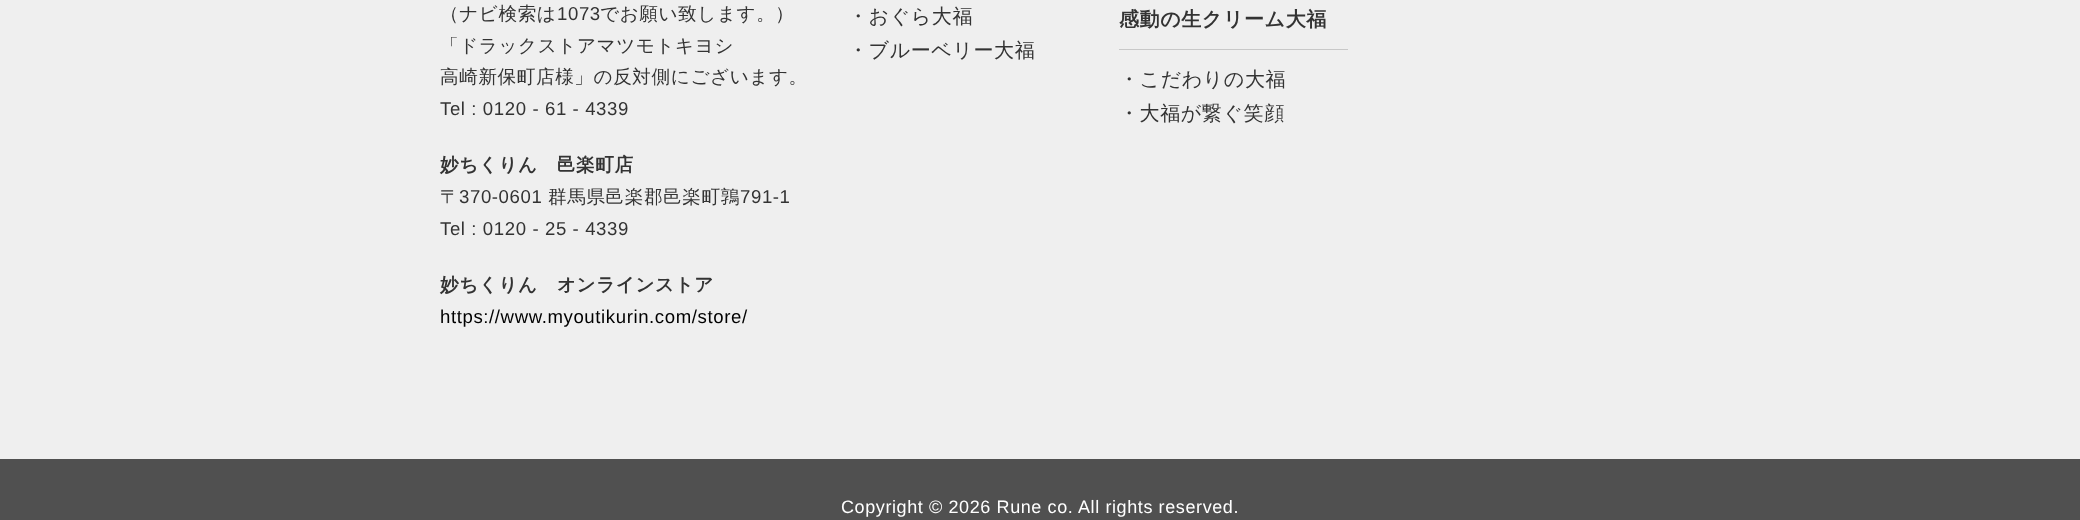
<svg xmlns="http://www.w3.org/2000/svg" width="2080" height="520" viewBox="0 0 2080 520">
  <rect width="100%" height="100%" fill="#efefef"/>
  <text x="440" y="20" font-family="WenQuanYi Zen Hei" font-size="18.6" font-weight="500" letter-spacing="0.6" fill="#333333">（ナビ検索は</text>
  <text x="557" y="20" font-family="Liberation Sans" font-size="18.6" letter-spacing="0.6" fill="#333333">1073</text>
  <text x="600" y="20" font-family="WenQuanYi Zen Hei" font-size="18.6" font-weight="500" letter-spacing="0.6" fill="#333333">でお願い致します。）</text>
  <text x="440" y="52" font-family="WenQuanYi Zen Hei" font-size="18.6" font-weight="500" letter-spacing="0.6" fill="#333333">「ドラックストアマツモトキヨシ</text>
  <text x="440" y="83" font-family="WenQuanYi Zen Hei" font-size="18.6" font-weight="500" letter-spacing="0.6" fill="#333333">高崎新保町店様」の反対側にございます。</text>
  <text x="440" y="115" font-family="Liberation Sans" font-size="18.6" letter-spacing="0.6" fill="#333333">Tel : 0120 - 61 - 4339</text>
  <text x="440" y="171" font-family="WenQuanYi Zen Hei" font-size="18.6" font-weight="bold" letter-spacing="0.6" fill="#333333">妙ちくりん　邑楽町店</text>
  <text x="440" y="203" font-family="WenQuanYi Zen Hei" font-size="18.6" font-weight="500" letter-spacing="0.6" fill="#333333">〒</text>
  <text x="459" y="203" font-family="Liberation Sans" font-size="18.6" letter-spacing="0.6" fill="#333333">370-0601</text>
  <text x="548" y="203" font-family="WenQuanYi Zen Hei" font-size="18.6" font-weight="500" letter-spacing="0.6" fill="#333333">群馬県邑楽郡邑楽町鶉</text>
  <text x="740" y="203" font-family="Liberation Sans" font-size="18.6" letter-spacing="0.6" fill="#333333">791-1</text>
  <text x="440" y="235" font-family="Liberation Sans" font-size="18.6" letter-spacing="0.6" fill="#333333">Tel : 0120 - 25 - 4339</text>
  <text x="440" y="291" font-family="WenQuanYi Zen Hei" font-size="18.6" font-weight="bold" letter-spacing="0.6" fill="#333333">妙ちくりん　オンラインストア</text>
  <text x="440" y="323" font-family="Liberation Sans" font-size="18.6" letter-spacing="0.6" fill="#000000">https://www.myoutikurin.com/store/</text>
  <text x="848" y="23" font-family="WenQuanYi Zen Hei" font-size="20" font-weight="500" letter-spacing="0.6" fill="#333333">・おぐら大福</text>
  <text x="848" y="57" font-family="WenQuanYi Zen Hei" font-size="20" font-weight="500" letter-spacing="0.6" fill="#333333">・ブルーベリー大福</text>
  <rect x="1119" y="49" width="229" height="1" fill="#c8c8c8"/>
  <text x="1119" y="26" font-family="WenQuanYi Zen Hei" font-size="20" font-weight="bold" letter-spacing="0.6" fill="#333333">感動の生クリーム大福</text>
  <text x="1119" y="86" font-family="WenQuanYi Zen Hei" font-size="20" font-weight="500" letter-spacing="0.6" fill="#333333">・こだわりの大福</text>
  <text x="1119" y="120" font-family="WenQuanYi Zen Hei" font-size="20" font-weight="500" letter-spacing="0.6" fill="#333333">・大福が繋ぐ笑顔</text>
  <rect x="0" y="459" width="2080" height="61" fill="#505050"/>
  <text x="841" y="513" font-family="Liberation Sans" font-size="18" letter-spacing="0.6" fill="#ffffff">Copyright © 2026 Rune co. All rights reserved.</text>
</svg>
